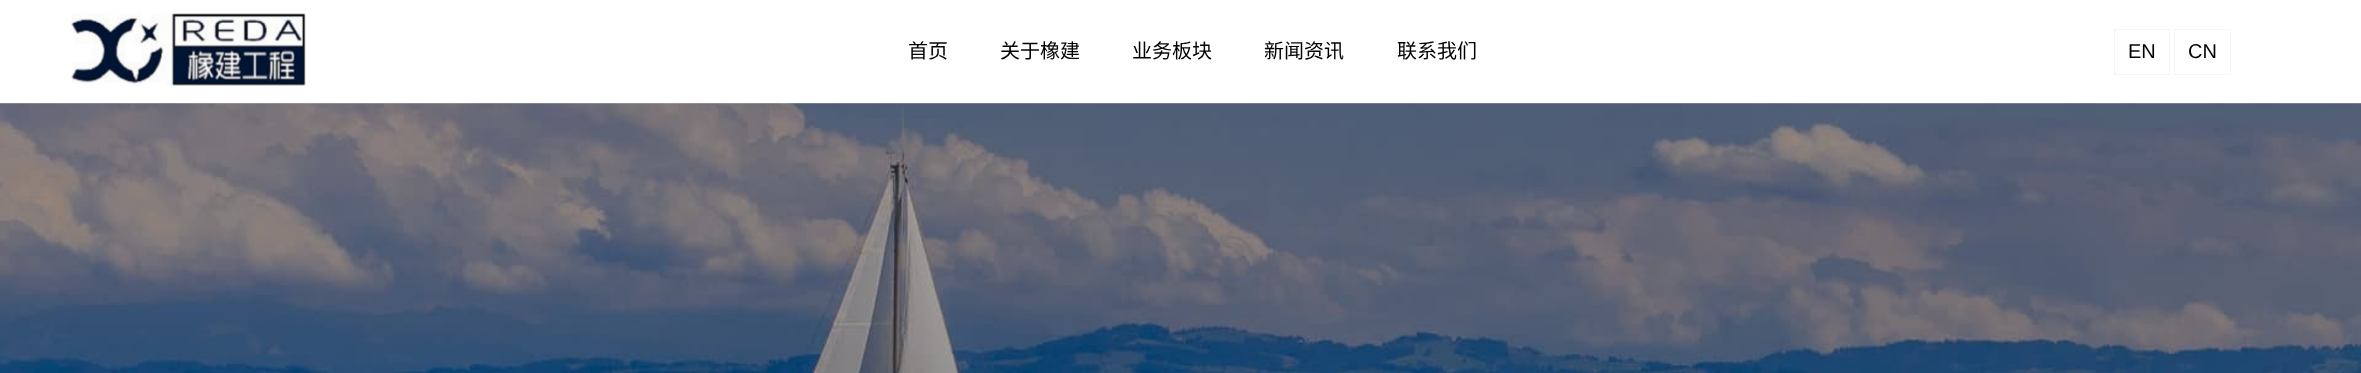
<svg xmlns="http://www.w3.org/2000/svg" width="2361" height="373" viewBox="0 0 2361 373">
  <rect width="100%" height="100%" fill="#ffffff"/>
  <image x="0" y="103" width="2361" height="270" href="img2.png"/>
  <rect x="0" y="103" width="2361" height="1" fill="#ffffff" fill-opacity="0.2"/>
  <image x="71" y="12" width="235" height="74" href="img1.png"/>
  <text x="908" y="58" font-family="Noto Sans CJK SC" font-size="20" fill="#000000">首页</text>
  <text x="1000" y="58" font-family="Noto Sans CJK SC" font-size="20" fill="#000000">关于橡建</text>
  <text x="1132" y="58" font-family="Noto Sans CJK SC" font-size="20" fill="#000000">业务板块</text>
  <text x="1264" y="58" font-family="Noto Sans CJK SC" font-size="20" fill="#000000">新闻资讯</text>
  <text x="1397" y="58" font-family="Noto Sans CJK SC" font-size="20" fill="#000000">联系我们</text>
  <rect x="2114.5" y="29.5" width="55" height="45" fill="none" stroke="#f5f5f5"/>
  <text x="2128" y="58" font-family="Liberation Sans" font-size="20" fill="#000000">EN</text>
  <rect x="2174.5" y="29.5" width="56" height="45" fill="none" stroke="#f5f5f5"/>
  <text x="2188" y="58" font-family="Liberation Sans" font-size="20" fill="#000000">CN</text>
</svg>
